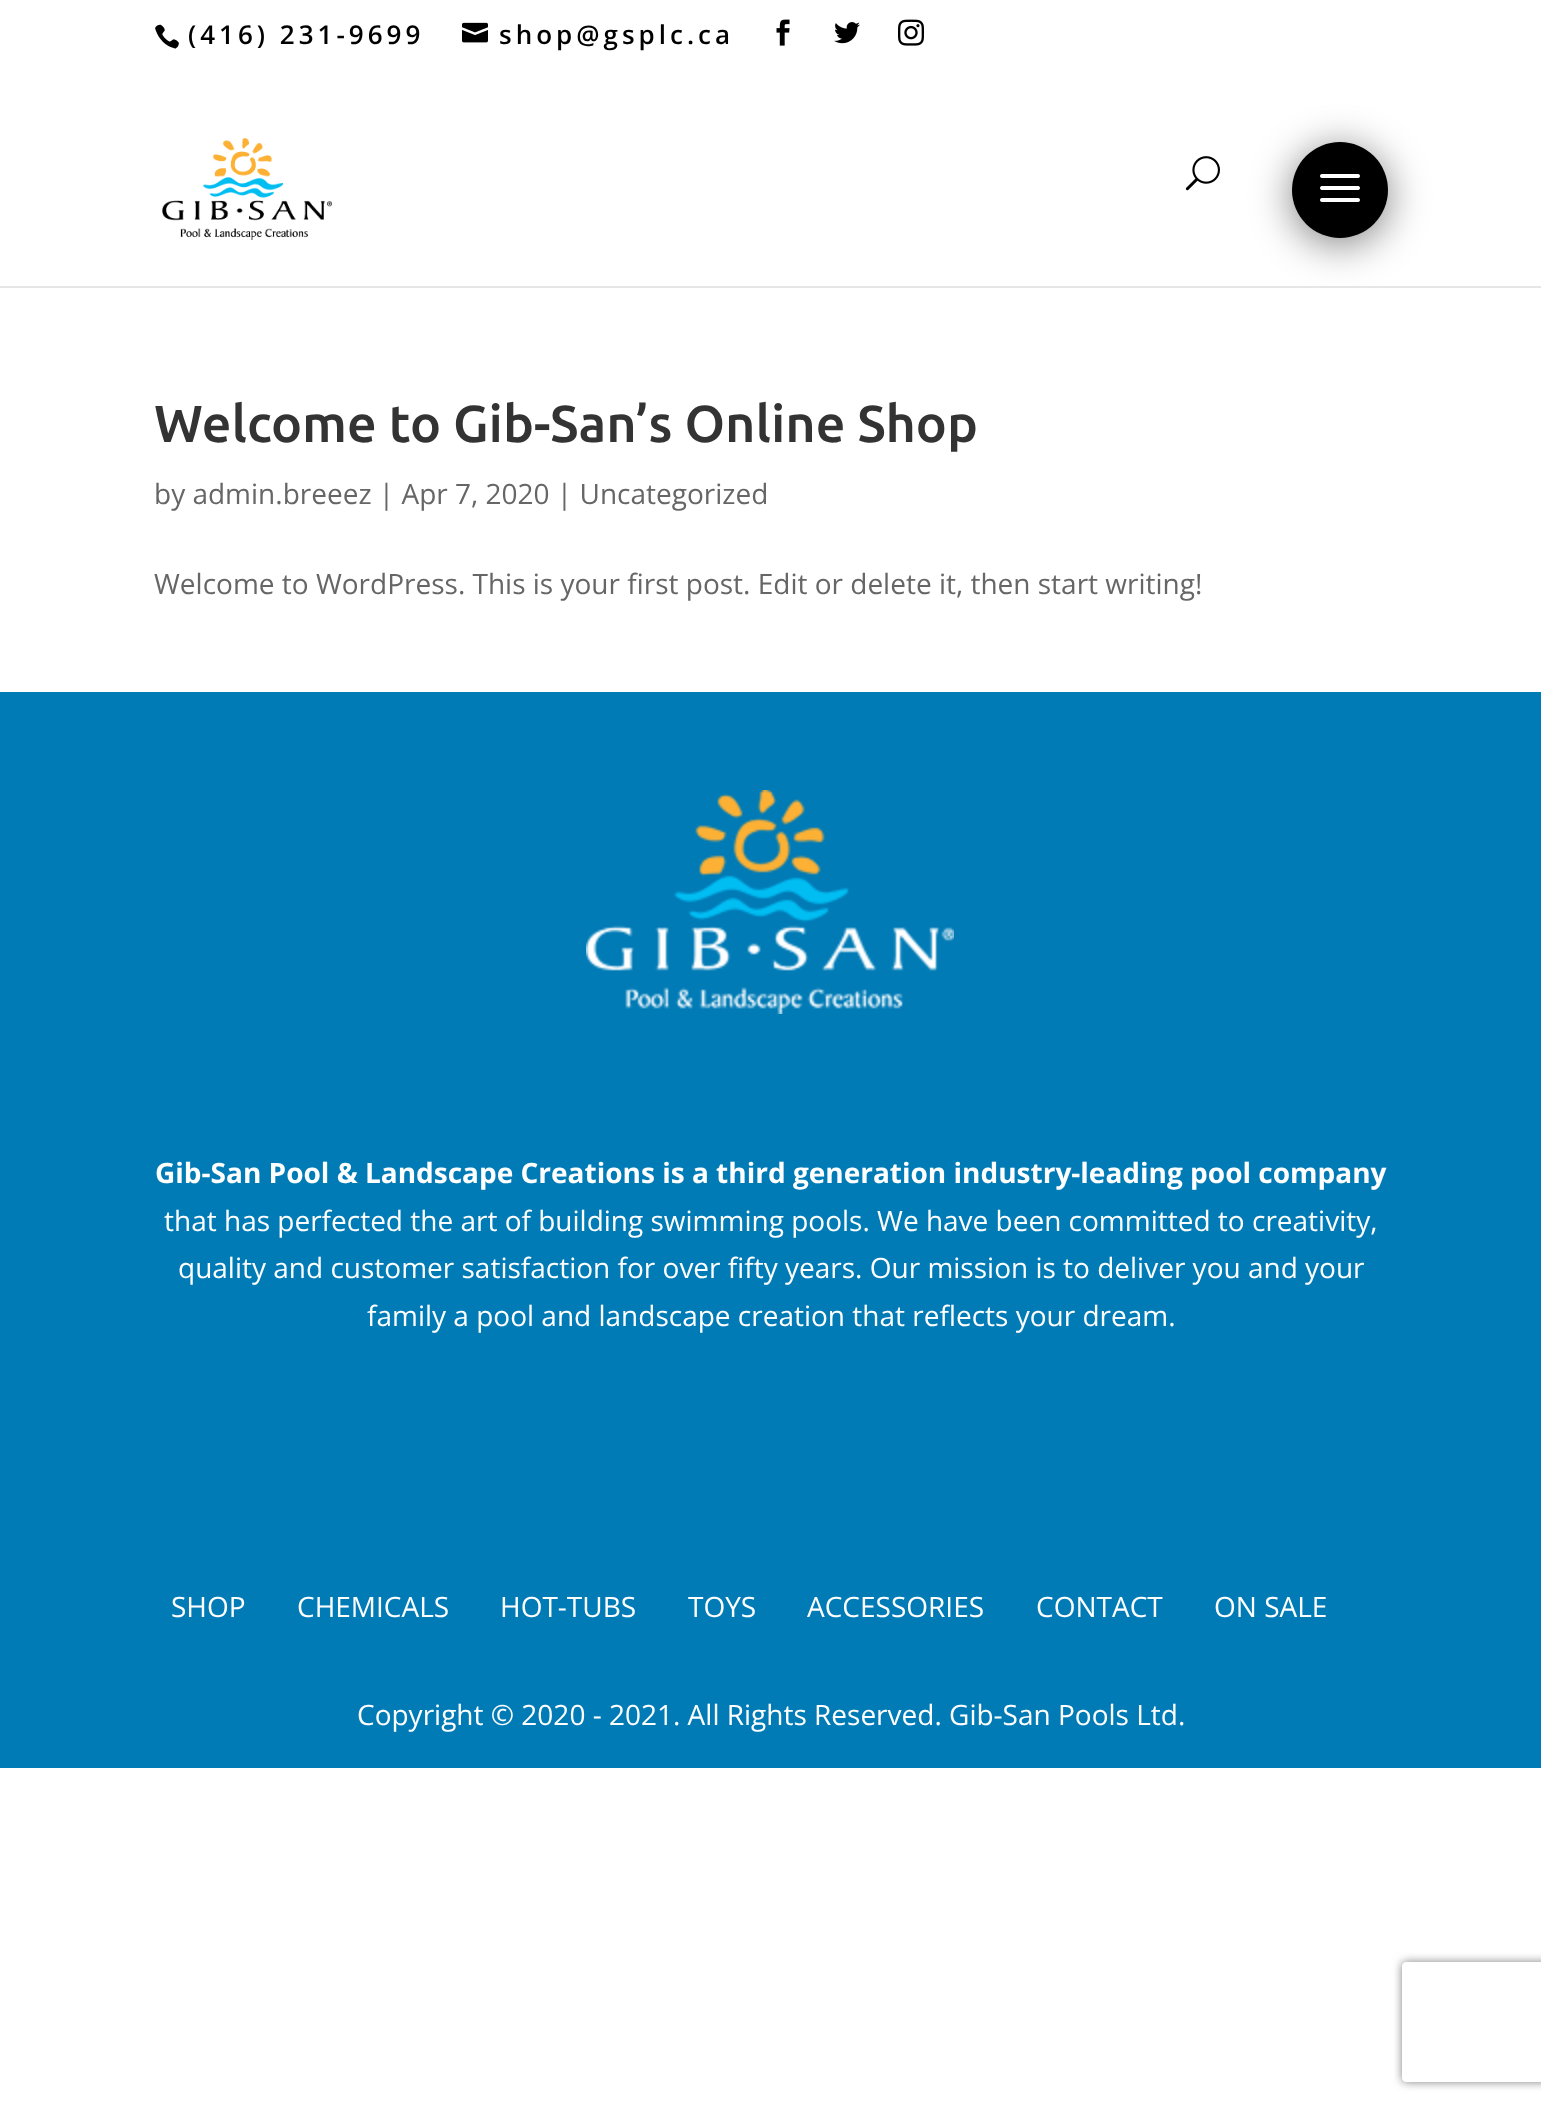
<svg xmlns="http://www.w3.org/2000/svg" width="1541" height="2109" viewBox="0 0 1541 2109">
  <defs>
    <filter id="blur1" x="-50%" y="-200%" width="200%" height="500%"><feGaussianBlur stdDeviation="20"/></filter>
    <clipPath id="clip1"><path d="M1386 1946H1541V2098H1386ZM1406 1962H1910C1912 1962 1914 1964 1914 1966V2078C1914 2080 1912 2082 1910 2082H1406C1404 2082 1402 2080 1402 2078V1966C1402 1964 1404 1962 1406 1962Z" clip-rule="evenodd"/></clipPath>
    <filter id="blur2" x="-50%" y="-200%" width="200%" height="500%"><feGaussianBlur stdDeviation="5"/></filter>
  </defs>
  <rect width="100%" height="100%" fill="#ffffff"/>
  <image x="155" y="24" width="24" height="25" href="img1.png"/>
  <text x="188" y="44" font-family="Open Sans" font-size="26" font-weight="600" letter-spacing="4" fill="#000000">(416) 231-9699</text>
  <image x="462" y="22" width="26" height="21" href="img2.png"/>
  <text x="499" y="44" font-family="Open Sans" font-size="26" font-weight="600" letter-spacing="4" fill="#000000">shop@gsplc.ca</text>
  <image x="776" y="19" width="14" height="27" href="img3.png"/>
  <image x="834" y="22" width="26" height="22" href="img4.png"/>
  <image x="898" y="19" width="26" height="27" href="img5.png"/>
  <rect x="0" y="286" width="1541" height="2" fill="#e6e6e6"/>
  <image x="162" y="138" width="170" height="102" href="img6.png"/>
  <image x="1185" y="156" width="35" height="35" href="img7.png"/>
  <rect x="1292" y="148" width="96" height="96" rx="48" fill="#000000" fill-opacity="0.5" filter="url(#blur1)"/>
  <circle cx="1340" cy="190" r="48" fill="#000000"/>
  <image x="1320" y="174" width="40" height="28" href="img8.png"/>
  <text x="154" y="442" font-family="Ubuntu" font-size="52" font-weight="500" fill="#333333">Welcome to Gib-San’s Online Shop</text>
  <text x="154" y="504" font-family="Open Sans" font-size="28" fill="#666666">by admin.breeez | Apr 7, 2020 | Uncategorized</text>
  <text x="154" y="594" font-family="Open Sans" font-size="28" fill="#666666">Welcome to WordPress. This is your first post. Edit or delete it, then start writing!</text>
  <rect x="0" y="692" width="1541" height="1076" fill="#007bb6"/>
  <image x="586" y="790" width="368" height="224" href="img9.png"/>
  <text x="155" y="1183" font-family="Open Sans" font-size="28" font-weight="bold" fill="#ffffff">Gib-San Pool &amp; Landscape Creations is a third generation industry-leading pool company</text>
  <text x="164" y="1231" font-family="Open Sans" font-size="28" fill="#ffffff">that has perfected the art of building swimming pools. We have been committed to creativity,</text>
  <text x="178" y="1278" font-family="Open Sans" font-size="28" fill="#ffffff">quality and customer satisfaction for over fifty years. Our mission is to deliver you and your</text>
  <text x="367" y="1326" font-family="Open Sans" font-size="28" fill="#ffffff">family a pool and landscape creation that reflects your dream.</text>
  <text x="171" y="1617" font-family="Open Sans" font-size="28" fill="#ffffff">SHOP</text>
  <text x="297" y="1617" font-family="Open Sans" font-size="28" fill="#ffffff">CHEMICALS</text>
  <text x="500" y="1617" font-family="Open Sans" font-size="28" fill="#ffffff">HOT-TUBS</text>
  <text x="688" y="1617" font-family="Open Sans" font-size="28" fill="#ffffff">TOYS</text>
  <text x="807" y="1617" font-family="Open Sans" font-size="28" fill="#ffffff">ACCESSORIES</text>
  <text x="1036" y="1617" font-family="Open Sans" font-size="28" fill="#ffffff">CONTACT</text>
  <text x="1214" y="1617" font-family="Open Sans" font-size="28" fill="#ffffff">ON SALE</text>
  <text x="357" y="1725" font-family="Open Sans" font-size="28" fill="#ffffff">Copyright © 2020 - 2021. All Rights Reserved. Gib-San Pools Ltd.</text>
  <g clip-path="url(#clip1)">
    <rect x="1402" y="1962" width="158" height="120" rx="4" fill="#808080" filter="url(#blur2)"/>
  </g>
</svg>
